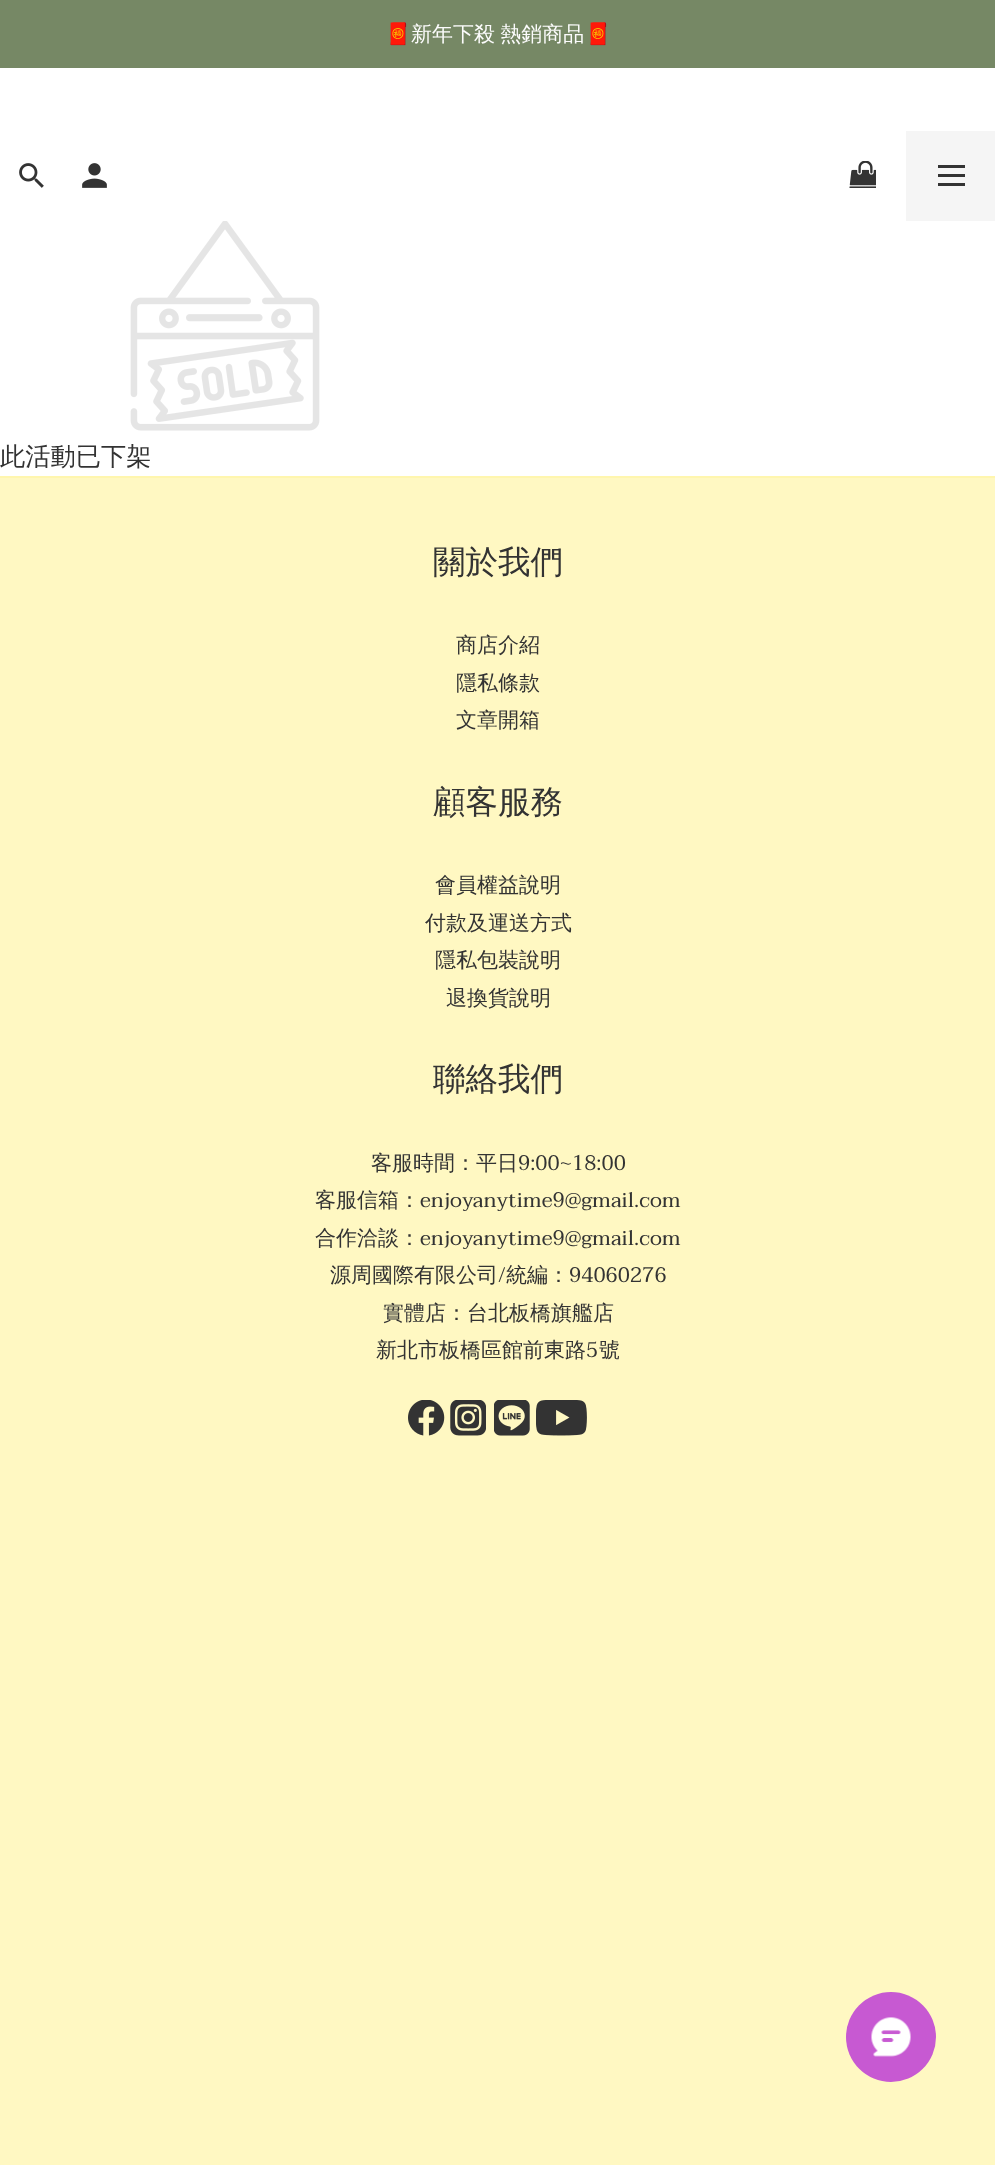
<svg xmlns="http://www.w3.org/2000/svg" width="995" height="2165" viewBox="0 0 995 2165">
  <rect width="100%" height="100%" fill="#ffffff"/>
  <rect x="0" y="0" width="995" height="68" fill="#768865"/>
  <text x="385" y="41" font-family="Noto Color Emoji" font-size="21" fill="#fcfcfc">🧧</text>
  <text x="411" y="41" word-spacing="-1" font-family="WenQuanYi Zen Hei" font-size="21" font-weight="500" fill="#fcfcfc">新年下殺 熱銷商品</text>
  <text x="585" y="41" font-family="Noto Color Emoji" font-size="21" fill="#fcfcfc">🧧</text>
  <image x="19" y="163" width="25" height="25" href="img1.png"/>
  <image x="82" y="163" width="25" height="25" href="img2.png"/>
  <image x="849" y="161" width="27" height="27" href="img3.png"/>
  <rect x="906" y="131" width="89" height="90" fill="#f5f5f5"/>
  <rect x="938" y="174" width="27" height="3" fill="#333333"/>
  <rect x="938" y="165" width="27" height="3" fill="#333333"/>
  <rect x="938" y="183" width="27" height="3" fill="#333333"/>
  <image x="130" y="221" width="190" height="210" href="img4.png"/>
  <text x="0" y="465" font-family="WenQuanYi Zen Hei" font-size="25.25" font-weight="500" fill="#333333">此活動已下架</text>
  <rect x="0" y="478" width="995" height="1687" fill="#fff8c2"/>
  <rect x="0" y="476" width="995" height="2" fill="#fff6ae"/>
  <text x="433" y="573" font-family="WenQuanYi Zen Hei" font-size="32.5" font-weight="500" fill="#333333">關於我們</text>
  <text x="456" y="652" font-family="WenQuanYi Zen Hei" font-size="21" font-weight="500" fill="#333333">商店介紹</text>
  <text x="456" y="690" font-family="WenQuanYi Zen Hei" font-size="21" font-weight="500" fill="#333333">隱私條款</text>
  <text x="456" y="727" font-family="WenQuanYi Zen Hei" font-size="21" font-weight="500" fill="#333333">文章開箱</text>
  <text x="433" y="813" font-family="WenQuanYi Zen Hei" font-size="32.5" font-weight="500" fill="#333333">顧客服務</text>
  <text x="435" y="892" font-family="WenQuanYi Zen Hei" font-size="21" font-weight="500" fill="#333333">會員權益說明</text>
  <text x="425" y="930" font-family="WenQuanYi Zen Hei" font-size="21" font-weight="500" fill="#333333">付款及運送方式</text>
  <text x="435" y="967" font-family="WenQuanYi Zen Hei" font-size="21" font-weight="500" fill="#333333">隱私包裝說明</text>
  <text x="446" y="1005" font-family="WenQuanYi Zen Hei" font-size="21" font-weight="500" fill="#333333">退換貨說明</text>
  <text x="433" y="1090" font-family="WenQuanYi Zen Hei" font-size="32.5" font-weight="500" fill="#333333">聯絡我們</text>
  <text x="371" y="1170" font-family="WenQuanYi Zen Hei" font-size="21" font-weight="500" fill="#333333">客服時間：平日</text>
  <text x="518" y="1170" font-family="Taviraj" font-size="21" fill="#333333">9:00~18:00</text>
  <text x="315" y="1207" font-family="WenQuanYi Zen Hei" font-size="21" font-weight="500" fill="#333333">客服信箱：</text>
  <text x="420" y="1207" font-family="Taviraj" font-size="21" fill="#333333">enjoyanytime9@gmail.com</text>
  <text x="315" y="1245" font-family="WenQuanYi Zen Hei" font-size="21" font-weight="500" fill="#333333">合作洽談：</text>
  <text x="420" y="1245" font-family="Taviraj" font-size="21" fill="#333333">enjoyanytime9@gmail.com</text>
  <text x="330" y="1282" font-family="WenQuanYi Zen Hei" font-size="21" font-weight="500" fill="#333333">源周國際有限公司</text>
  <text x="498" y="1282" font-family="Taviraj" font-size="21" fill="#333333">/</text>
  <text x="506" y="1282" font-family="WenQuanYi Zen Hei" font-size="21" font-weight="500" fill="#333333">統編：</text>
  <text x="569" y="1282" font-family="Taviraj" font-size="21" fill="#333333">94060276</text>
  <text x="383" y="1320" font-family="WenQuanYi Zen Hei" font-size="21" font-weight="500" fill="#333333">實體店：台北板橋旗艦店</text>
  <text x="376" y="1357" font-family="WenQuanYi Zen Hei" font-size="21" font-weight="500" fill="#333333">新北市板橋區館前東路</text>
  <text x="586" y="1357" font-family="Taviraj" font-size="21" fill="#333333">5</text>
  <text x="599" y="1357" font-family="WenQuanYi Zen Hei" font-size="21" font-weight="500" fill="#333333">號</text>
  <image x="408" y="1400" width="37" height="36" href="img5.png"/>
  <image x="450" y="1400" width="36" height="36" href="img6.png"/>
  <image x="494" y="1400" width="36" height="36" href="img7.png"/>
  <image x="536" y="1400" width="51" height="36" href="img8.png"/>
  <circle cx="891" cy="2037" r="45" fill="#c759d2"/>
  <image x="871" y="2017" width="40" height="40" href="img9.png"/>
</svg>
